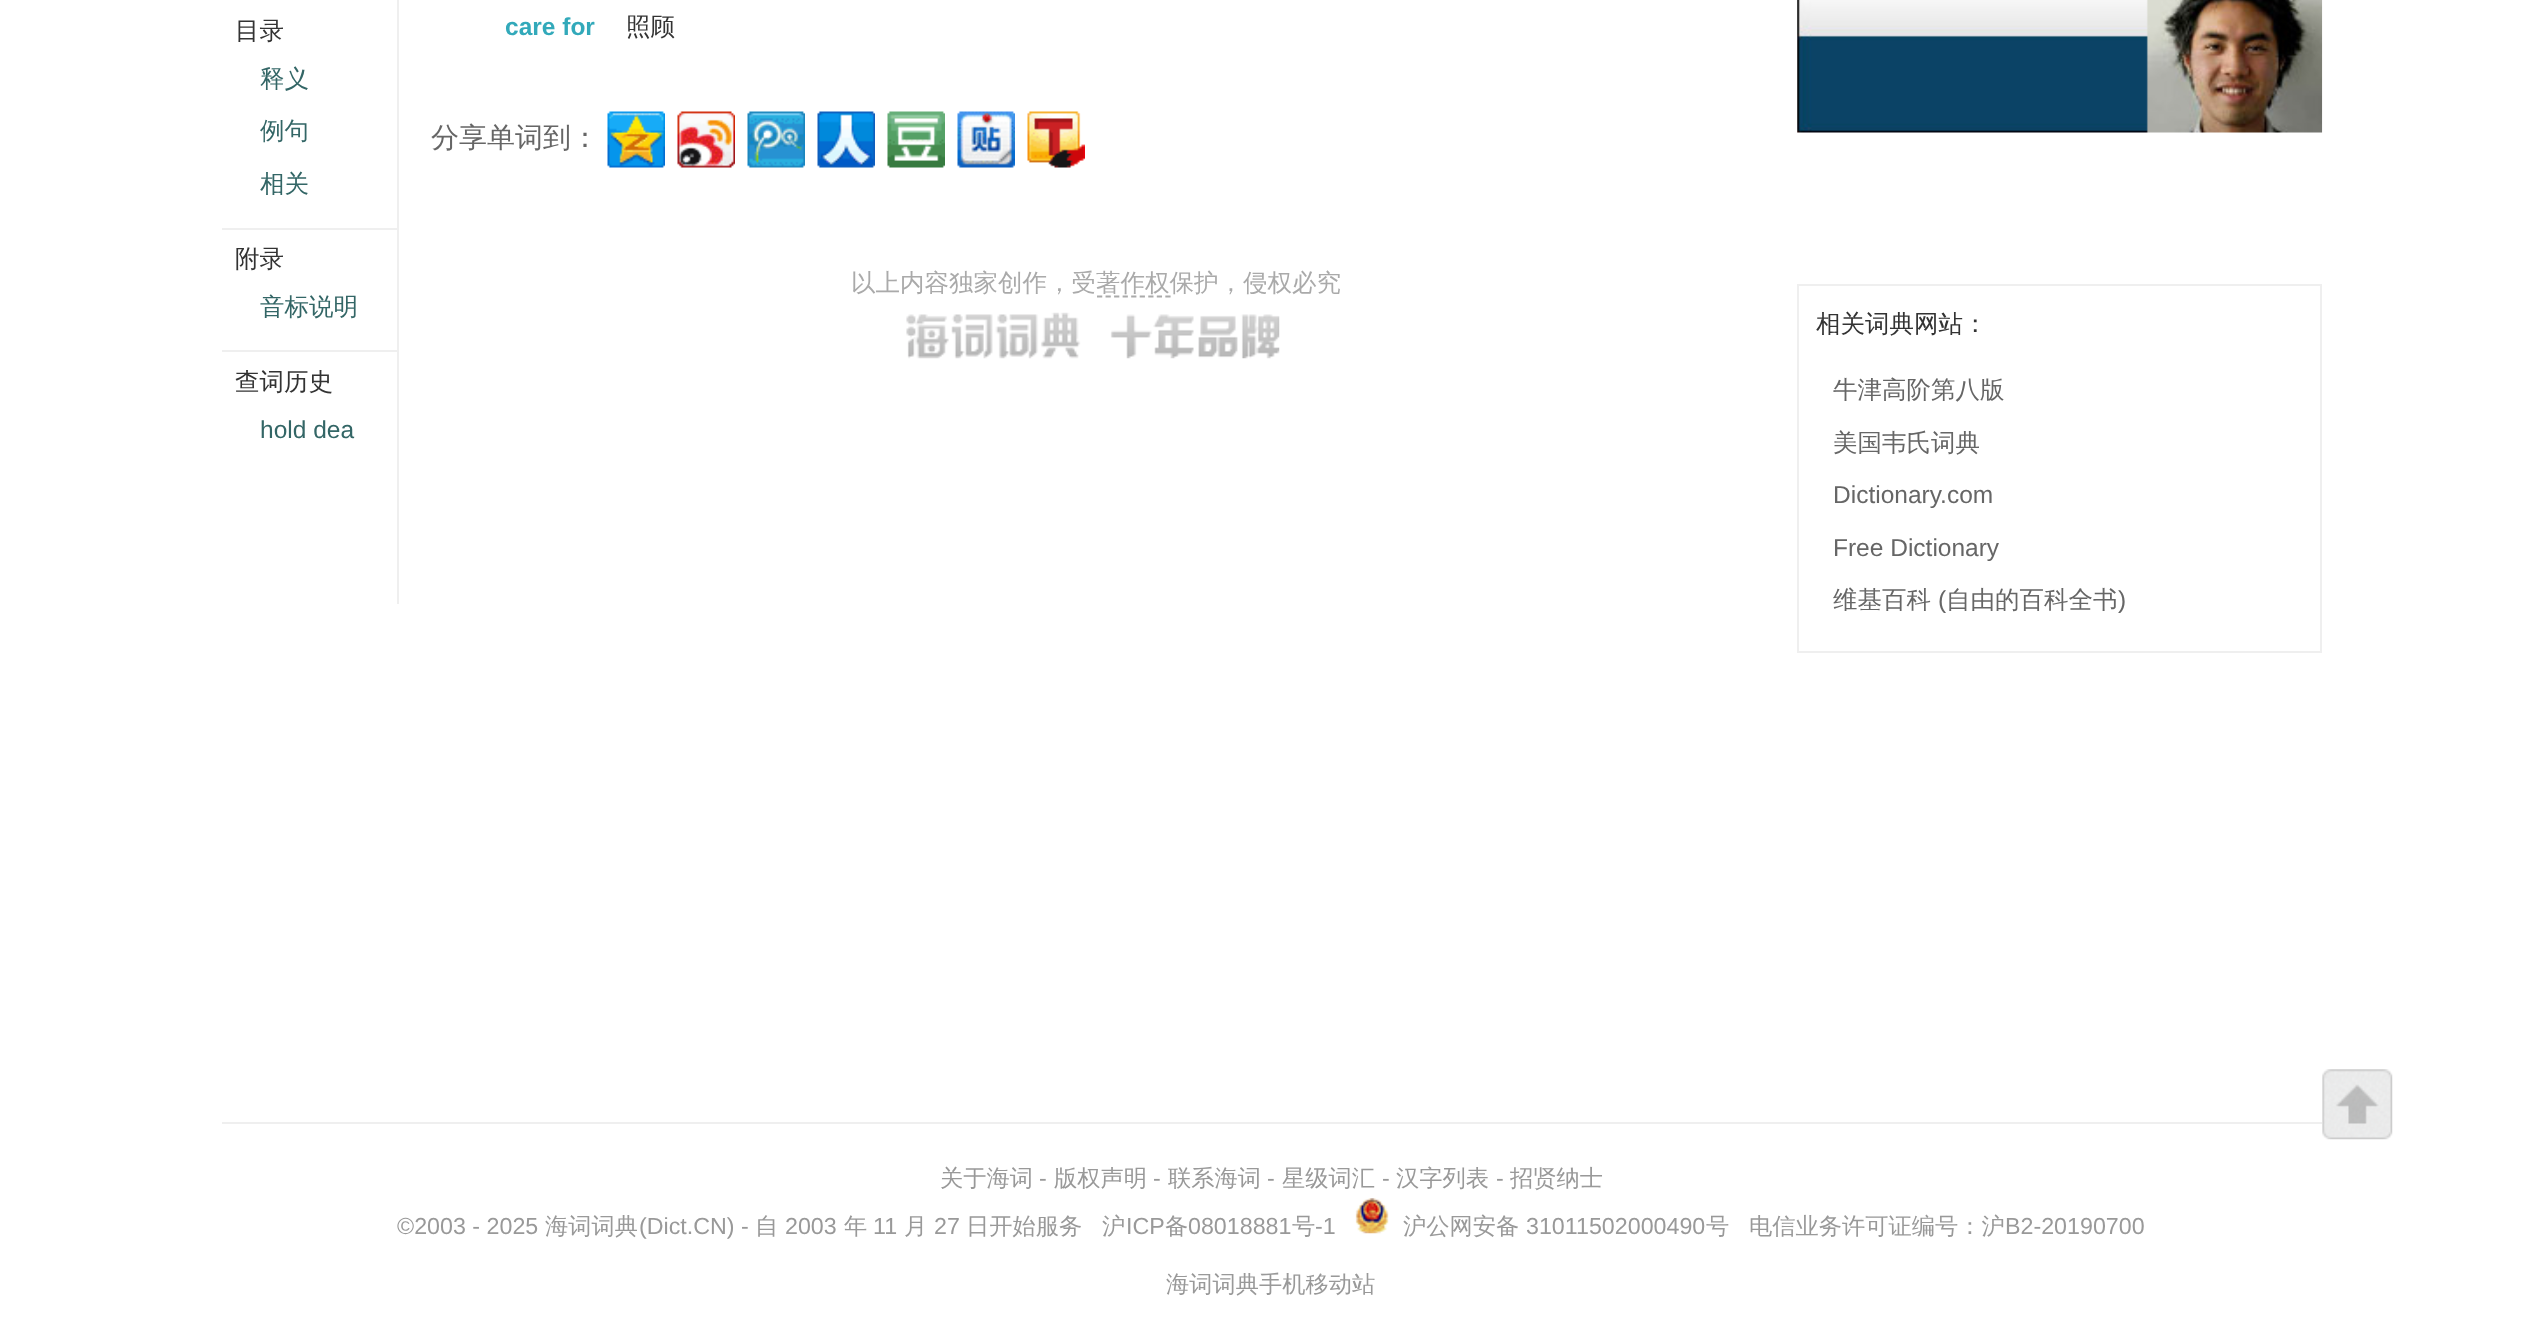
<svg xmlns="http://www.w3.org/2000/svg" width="2542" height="1339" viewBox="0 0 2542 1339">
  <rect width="100%" height="100%" fill="#ffffff"/>
  <text x="235" y="39" font-family="WenQuanYi Zen Hei" font-size="24.5" font-weight="500" fill="#333333">目录</text>
  <text x="260" y="87" font-family="WenQuanYi Zen Hei" font-size="24.5" font-weight="500" fill="#336666">释义</text>
  <text x="260" y="139" font-family="WenQuanYi Zen Hei" font-size="24.5" font-weight="500" fill="#336666">例句</text>
  <text x="260" y="192" font-family="WenQuanYi Zen Hei" font-size="24.5" font-weight="500" fill="#336666">相关</text>
  <rect x="222" y="228" width="175" height="2" fill="#efefef"/>
  <text x="235" y="267" font-family="WenQuanYi Zen Hei" font-size="24.5" font-weight="500" fill="#333333">附录</text>
  <text x="260" y="315" font-family="WenQuanYi Zen Hei" font-size="24.5" font-weight="500" fill="#336666">音标说明</text>
  <rect x="222" y="350" width="175" height="2" fill="#efefef"/>
  <text x="235" y="390" font-family="WenQuanYi Zen Hei" font-size="24.5" font-weight="500" fill="#333333">查词历史</text>
  <text x="260" y="438" font-family="Liberation Sans" font-size="24.5" fill="#336666">hold dea</text>
  <rect x="397" y="0" width="2" height="604" fill="#efefef"/>
  <text x="505" y="35" font-family="Liberation Sans" font-size="24.5" font-weight="bold" fill="#32a9ba">care for</text>
  <text x="626" y="35" font-family="WenQuanYi Zen Hei" font-size="24.5" font-weight="500" fill="#333333">照顾</text>
  <text x="431" y="147" font-family="WenQuanYi Zen Hei" font-size="28" font-weight="500" fill="#666666">分享单词到：</text>
  <image x="607" y="111" width="58" height="57" href="img1.png"/>
  <image x="677" y="111" width="58" height="57" href="img2.png"/>
  <image x="747" y="111" width="58" height="57" href="img3.png"/>
  <image x="817" y="111" width="58" height="57" href="img4.png"/>
  <image x="887" y="111" width="58" height="57" href="img5.png"/>
  <image x="957" y="111" width="58" height="57" href="img6.png"/>
  <image x="1027" y="111" width="58" height="57" href="img7.png"/>
  <text x="851" y="291" font-family="WenQuanYi Zen Hei" font-size="24.5" font-weight="500" fill="#aaaaaa">以上内容独家创作，受著作权保护，侵权必究</text>
  <path d="M1097 296.5H1171" fill="none" stroke="#aaaaaa" stroke-width="1.8" stroke-dasharray="5.25 3.29"/>
  <image x="906" y="312" width="374" height="47" href="img8.png"/>
  <image x="1797" y="0" width="526" height="133" href="img9.png"/>
  <rect x="1798" y="285" width="523" height="367" fill="none" stroke="#efefef" stroke-width="2"/>
  <text x="1816" y="332" font-family="WenQuanYi Zen Hei" font-size="24.5" font-weight="500" fill="#333333">相关词典网站：</text>
  <text x="1833" y="398" font-family="WenQuanYi Zen Hei" font-size="24.5" font-weight="500" fill="#666666">牛津高阶第八版</text>
  <text x="1833" y="451" font-family="WenQuanYi Zen Hei" font-size="24.5" font-weight="500" fill="#666666">美国韦氏词典</text>
  <text x="1833" y="503" font-family="Liberation Sans" font-size="24.5" fill="#666666">Dictionary.com</text>
  <text x="1833" y="556" font-family="Liberation Sans" font-size="24.5" fill="#666666">Free Dictionary</text>
  <text x="1833" y="608" font-family="WenQuanYi Zen Hei" font-size="24.5" font-weight="500" fill="#666666">维基百科</text>
  <text x="1938" y="608" font-family="Liberation Sans" font-size="24.5" fill="#666666">(</text>
  <text x="1946" y="608" font-family="WenQuanYi Zen Hei" font-size="24.5" font-weight="500" fill="#666666">自由的百科全书</text>
  <text x="2118" y="608" font-family="Liberation Sans" font-size="24.5" fill="#666666">)</text>
  <image x="2322" y="1069" width="71" height="71" href="img10.png"/>
  <rect x="222" y="1122" width="2100" height="2" fill="#efefef"/>
  <text x="940" y="1186" font-family="WenQuanYi Zen Hei" font-size="23.25" font-weight="500" fill="#999999">关于海词</text>
  <text x="1039" y="1186" font-family="Liberation Sans" font-size="23.25" fill="#999999">-</text>
  <text x="1054" y="1186" font-family="WenQuanYi Zen Hei" font-size="23.25" font-weight="500" fill="#999999">版权声明</text>
  <text x="1153" y="1186" font-family="Liberation Sans" font-size="23.25" fill="#999999">-</text>
  <text x="1168" y="1186" font-family="WenQuanYi Zen Hei" font-size="23.25" font-weight="500" fill="#999999">联系海词</text>
  <text x="1267" y="1186" font-family="Liberation Sans" font-size="23.25" fill="#999999">-</text>
  <text x="1282" y="1186" font-family="WenQuanYi Zen Hei" font-size="23.25" font-weight="500" fill="#999999">星级词汇</text>
  <text x="1382" y="1186" font-family="Liberation Sans" font-size="23.25" fill="#999999">-</text>
  <text x="1396" y="1186" font-family="WenQuanYi Zen Hei" font-size="23.25" font-weight="500" fill="#999999">汉字列表</text>
  <text x="1496" y="1186" font-family="Liberation Sans" font-size="23.25" fill="#999999">-</text>
  <text x="1510" y="1186" font-family="WenQuanYi Zen Hei" font-size="23.25" font-weight="500" fill="#999999">招贤纳士</text>
  <text x="397" y="1234" font-family="Liberation Sans" font-size="23.25" fill="#999999">©2003 - 2025</text>
  <text x="545" y="1234" font-family="WenQuanYi Zen Hei" font-size="23.25" font-weight="500" fill="#999999">海词词典</text>
  <text x="639" y="1234" font-family="Liberation Sans" font-size="23.25" fill="#999999">(Dict.CN) -</text>
  <text x="755" y="1234" font-family="WenQuanYi Zen Hei" font-size="23.25" font-weight="500" fill="#999999">自</text>
  <text x="785" y="1234" font-family="Liberation Sans" font-size="23.25" fill="#999999">2003</text>
  <text x="844" y="1234" font-family="WenQuanYi Zen Hei" font-size="23.25" font-weight="500" fill="#999999">年</text>
  <text x="873" y="1234" font-family="Liberation Sans" font-size="23.25" fill="#999999">11</text>
  <text x="904" y="1234" font-family="WenQuanYi Zen Hei" font-size="23.25" font-weight="500" fill="#999999">月</text>
  <text x="934" y="1234" font-family="Liberation Sans" font-size="23.25" fill="#999999">27</text>
  <text x="966" y="1234" font-family="WenQuanYi Zen Hei" font-size="23.25" font-weight="500" fill="#999999">日开始服务</text>
  <text x="1102" y="1234" font-family="WenQuanYi Zen Hei" font-size="23.25" font-weight="500" fill="#999999">沪</text>
  <text x="1126" y="1234" font-family="Liberation Sans" font-size="23.25" fill="#999999">ICP</text>
  <text x="1165" y="1234" font-family="WenQuanYi Zen Hei" font-size="23.25" font-weight="500" fill="#999999">备</text>
  <text x="1188" y="1234" font-family="Liberation Sans" font-size="23.25" fill="#999999">08018881</text>
  <text x="1292" y="1234" font-family="WenQuanYi Zen Hei" font-size="23.25" font-weight="500" fill="#999999">号</text>
  <text x="1315" y="1234" font-family="Liberation Sans" font-size="23.25" fill="#999999">-1</text>
  <image x="1355" y="1198" width="34" height="36" href="img11.png"/>
  <text x="1403" y="1234" font-family="WenQuanYi Zen Hei" font-size="23.25" font-weight="500" fill="#999999">沪公网安备</text>
  <text x="1526" y="1234" font-family="Liberation Sans" font-size="23.25" fill="#999999">31011502000490</text>
  <text x="1706" y="1234" font-family="WenQuanYi Zen Hei" font-size="23.25" font-weight="500" fill="#999999">号</text>
  <text x="1749" y="1234" font-family="WenQuanYi Zen Hei" font-size="23.25" font-weight="500" fill="#999999">电信业务许可证编号：沪</text>
  <text x="2005" y="1234" font-family="Liberation Sans" font-size="23.25" fill="#999999">B2-20190700</text>
  <text x="1166" y="1292" font-family="WenQuanYi Zen Hei" font-size="23.25" font-weight="500" fill="#999999">海词词典手机移动站</text>
</svg>
